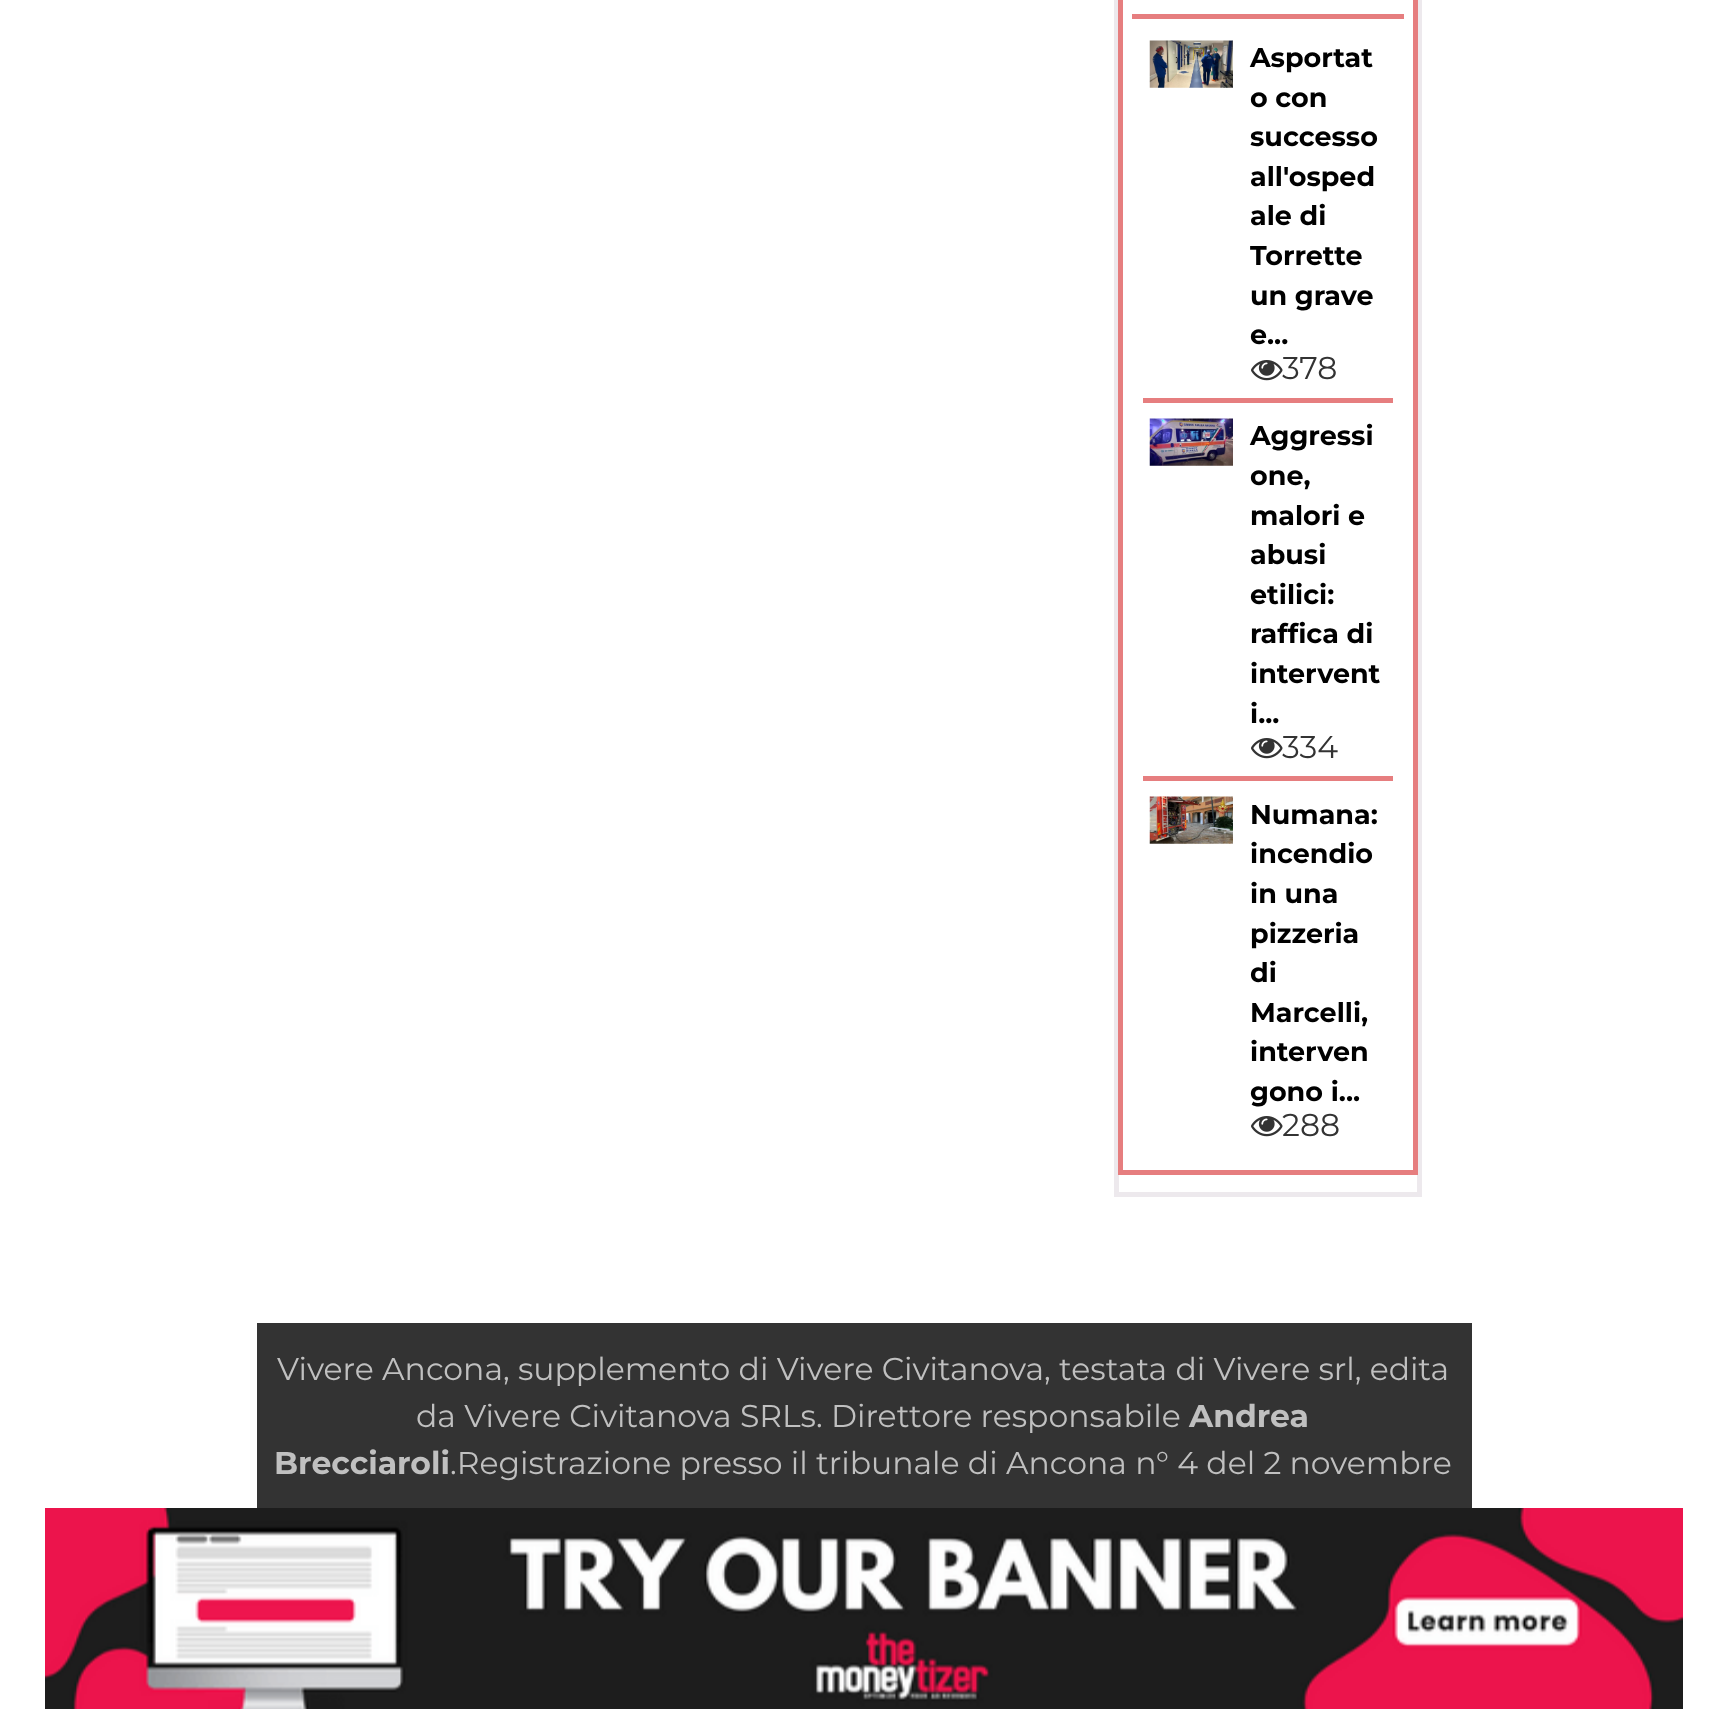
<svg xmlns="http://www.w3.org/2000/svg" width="1725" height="1709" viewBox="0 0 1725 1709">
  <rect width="100%" height="100%" fill="#ffffff"/>
  <rect x="1116.5" y="-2.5" width="303" height="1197" fill="none" stroke="#ede9ed" stroke-width="5"/>
  <rect x="1120.5" y="-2.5" width="295" height="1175" fill="none" stroke="#e67e7f" stroke-width="5"/>
  <rect x="1132" y="14" width="272" height="5" fill="#e67e7f"/>
  <image x="1149" y="40" width="84" height="48" href="img1.png"/>
  <text x="1250" y="67" font-family="Montserrat" font-size="27" font-weight="bold" fill="#000000">Asportat</text>
  <text x="1250" y="107" font-family="Montserrat" font-size="27" font-weight="bold" fill="#000000">o con</text>
  <text x="1250" y="146" font-family="Montserrat" font-size="27" font-weight="bold" fill="#000000">successo</text>
  <text x="1250" y="186" font-family="Montserrat" font-size="27" font-weight="bold" fill="#000000">all'osped</text>
  <text x="1250" y="225" font-family="Montserrat" font-size="27" font-weight="bold" fill="#000000">ale di</text>
  <text x="1250" y="265" font-family="Montserrat" font-size="27" font-weight="bold" fill="#000000">Torrette</text>
  <text x="1250" y="305" font-family="Montserrat" font-size="27" font-weight="bold" fill="#000000">un grave</text>
  <text x="1250" y="344" font-family="Montserrat" font-size="27" font-weight="bold" fill="#000000">e...</text>
  <image x="1251" y="360" width="32" height="21" href="img2.png"/>
  <text x="1282" y="379" font-family="Montserrat" font-size="31.5" fill="#333333">378</text>
  <rect x="1143" y="398" width="250" height="5" fill="#e67e7f"/>
  <image x="1149" y="418" width="84" height="48" href="img3.png"/>
  <text x="1250" y="445" font-family="Montserrat" font-size="27" font-weight="bold" fill="#000000">Aggressi</text>
  <text x="1250" y="485" font-family="Montserrat" font-size="27" font-weight="bold" fill="#000000">one,</text>
  <text x="1250" y="525" font-family="Montserrat" font-size="27" font-weight="bold" fill="#000000">malori e</text>
  <text x="1250" y="564" font-family="Montserrat" font-size="27" font-weight="bold" fill="#000000">abusi</text>
  <text x="1250" y="604" font-family="Montserrat" font-size="27" font-weight="bold" fill="#000000">etilici:</text>
  <text x="1250" y="643" font-family="Montserrat" font-size="27" font-weight="bold" fill="#000000">raffica di</text>
  <text x="1250" y="683" font-family="Montserrat" font-size="27" font-weight="bold" fill="#000000">intervent</text>
  <text x="1250" y="723" font-family="Montserrat" font-size="27" font-weight="bold" fill="#000000">i...</text>
  <image x="1251" y="738" width="32" height="21" href="img2.png"/>
  <text x="1282" y="758" font-family="Montserrat" font-size="31.5" fill="#333333">334</text>
  <rect x="1143" y="776" width="250" height="5" fill="#e67e7f"/>
  <image x="1149" y="796" width="84" height="48" href="img4.png"/>
  <text x="1250" y="824" font-family="Montserrat" font-size="27" font-weight="bold" fill="#000000">Numana:</text>
  <text x="1250" y="863" font-family="Montserrat" font-size="27" font-weight="bold" fill="#000000">incendio</text>
  <text x="1250" y="903" font-family="Montserrat" font-size="27" font-weight="bold" fill="#000000">in una</text>
  <text x="1250" y="943" font-family="Montserrat" font-size="27" font-weight="bold" fill="#000000">pizzeria</text>
  <text x="1250" y="982" font-family="Montserrat" font-size="27" font-weight="bold" fill="#000000">di</text>
  <text x="1250" y="1022" font-family="Montserrat" font-size="27" font-weight="bold" fill="#000000">Marcelli,</text>
  <text x="1250" y="1061" font-family="Montserrat" font-size="27" font-weight="bold" fill="#000000">interven</text>
  <text x="1250" y="1101" font-family="Montserrat" font-size="27" font-weight="bold" fill="#000000">gono i...</text>
  <image x="1251" y="1116" width="32" height="21" href="img2.png"/>
  <text x="1282" y="1136" font-family="Montserrat" font-size="31.5" fill="#333333">288</text>
  <rect x="257" y="1323" width="1215" height="185" fill="#333333"/>
  <text x="277" y="1380" font-family="Montserrat" font-size="31.5" fill="#c0c0c0">Vivere Ancona, supplemento di Vivere Civitanova, testata di Vivere srl, edita</text>
  <text x="416" y="1427" font-family="Montserrat" font-size="31.5" fill="#c0c0c0">da Vivere Civitanova SRLs. Direttore responsabile</text>
  <text x="1189" y="1427" font-family="Montserrat" font-size="31.5" font-weight="bold" fill="#c0c0c0">Andrea</text>
  <text x="274" y="1474" font-family="Montserrat" font-size="31.5" font-weight="bold" fill="#c0c0c0">Brecciaroli</text>
  <text x="450" y="1474" font-family="Montserrat" font-size="31.5" fill="#c0c0c0">.Registrazione presso il tribunale di Ancona n° 4 del 2 novembre</text>
  <image x="45" y="1508" width="1638" height="201" href="img5.png"/>
</svg>
